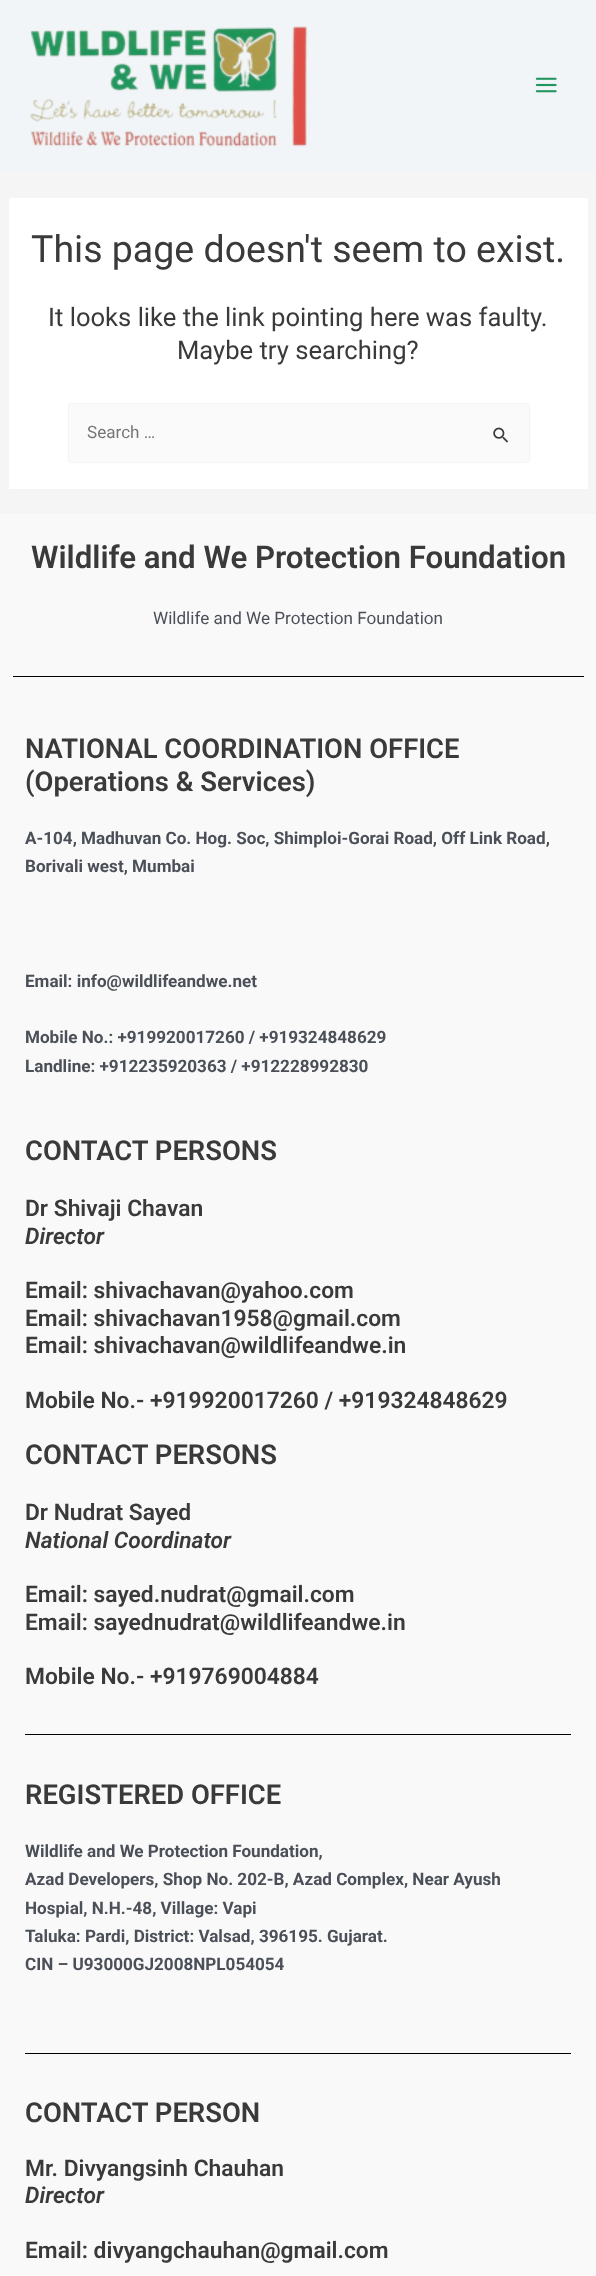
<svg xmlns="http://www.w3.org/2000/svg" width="596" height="2276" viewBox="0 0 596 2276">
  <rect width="100%" height="100%" fill="#f5f5f5"/>
  <rect x="0" y="0" width="596" height="171" fill="#f2f5f7"/>
  <image x="30" y="26" width="278" height="121" href="img1.png"/>
  <image x="535" y="77" width="22" height="16" href="img2.png"/>
  <rect x="9" y="198" width="579" height="291" fill="#ffffff"/>
  <text x="31" y="262" font-family="Roboto" font-size="37.5" fill="#3a3a3a">This page doesn't seem to exist.</text>
  <text x="48" y="326" font-family="Roboto" font-size="25.6" fill="#3a3a3a">It looks like the link pointing here was faulty.</text>
  <text x="177" y="359" font-family="Roboto" font-size="25.6" fill="#3a3a3a">Maybe try searching?</text>
  <rect x="68.5" y="403.5" width="461" height="59" rx="2" fill="#fafafa" stroke="#f2f5f7"/>
  <text x="87" y="438" font-family="Roboto" font-size="17.1" fill="#757575">Search …</text>
  <image x="493" y="427" width="16" height="16" href="img3.png"/>
  <rect x="0" y="514" width="596" height="1762" fill="#f9f9f9"/>
  <text x="31" y="568" font-family="Roboto" font-size="31.25" font-weight="600" fill="#3a3a3a">Wildlife and We Protection Foundation</text>
  <text x="153" y="624" font-family="Roboto" font-size="17.1" fill="#4b4f58">Wildlife and We Protection Foundation</text>
  <rect x="13" y="676" width="571" height="1" fill="#000000"/>
  <text x="25" y="758" font-family="Roboto" font-size="27.4" font-weight="600" fill="#3a3a3a">NATIONAL COORDINATION OFFICE</text>
  <text x="25" y="791" font-family="Roboto" font-size="27.4" font-weight="600" fill="#3a3a3a">(Operations &amp; Services)</text>
  <text x="25" y="844" font-family="Roboto" font-size="17.1" font-weight="bold" fill="#4b4f58">A-104, Madhuvan Co. Hog. Soc, Shimploi-Gorai Road, Off Link Road,</text>
  <text x="25" y="872" font-family="Roboto" font-size="17.1" font-weight="bold" fill="#4b4f58">Borivali west, Mumbai</text>
  <text x="25" y="987" font-family="Roboto" font-size="17.1" font-weight="bold" fill="#4b4f58">Email: info@wildlifeandwe.net</text>
  <text x="25" y="1043" font-family="Roboto" font-size="17.1" font-weight="bold" fill="#4b4f58">Mobile No.: +919920017260 / +919324848629</text>
  <text x="25" y="1072" font-family="Roboto" font-size="17.1" font-weight="bold" fill="#4b4f58">Landline: +912235920363 / +912228992830</text>
  <text x="25" y="1160" font-family="Roboto" font-size="27.4" font-weight="600" fill="#3a3a3a">CONTACT PERSONS</text>
  <text x="25" y="1216" font-family="Roboto" font-size="22.8" font-weight="600" fill="#3a3a3a">Dr Shivaji Chavan</text>
  <text x="25" y="1244" font-family="Roboto" font-size="22.8" font-weight="600" font-style="italic" fill="#3a3a3a">Director</text>
  <text x="25" y="1298" font-family="Roboto" font-size="22.8" font-weight="600" fill="#3a3a3a">Email: shivachavan@yahoo.com</text>
  <text x="25" y="1326" font-family="Roboto" font-size="22.8" font-weight="600" fill="#3a3a3a">Email: shivachavan1958@gmail.com</text>
  <text x="25" y="1353" font-family="Roboto" font-size="22.8" font-weight="600" fill="#3a3a3a">Email: shivachavan@wildlifeandwe.in</text>
  <text x="25" y="1408" font-family="Roboto" font-size="22.8" font-weight="600" fill="#3a3a3a">Mobile No.- +919920017260 / +919324848629</text>
  <text x="25" y="1464" font-family="Roboto" font-size="27.4" font-weight="600" fill="#3a3a3a">CONTACT PERSONS</text>
  <text x="25" y="1520" font-family="Roboto" font-size="22.8" font-weight="600" fill="#3a3a3a">Dr Nudrat Sayed</text>
  <text x="25" y="1548" font-family="Roboto" font-size="22.8" font-weight="600" font-style="italic" fill="#3a3a3a">National Coordinator</text>
  <text x="25" y="1602" font-family="Roboto" font-size="22.8" font-weight="600" fill="#3a3a3a">Email: sayed.nudrat@gmail.com</text>
  <text x="25" y="1630" font-family="Roboto" font-size="22.8" font-weight="600" fill="#3a3a3a">Email: sayednudrat@wildlifeandwe.in</text>
  <text x="25" y="1684" font-family="Roboto" font-size="22.8" font-weight="600" fill="#3a3a3a">Mobile No.- +919769004884</text>
  <rect x="25" y="1734" width="546" height="1" fill="#000000"/>
  <text x="25" y="1804" font-family="Roboto" font-size="27.4" font-weight="600" fill="#3a3a3a">REGISTERED OFFICE</text>
  <text x="25" y="1857" font-family="Roboto" font-size="17.1" font-weight="bold" fill="#4b4f58">Wildlife and We Protection Foundation,</text>
  <text x="25" y="1885" font-family="Roboto" font-size="17.1" font-weight="bold" fill="#4b4f58">Azad Developers, Shop No. 202-B, Azad Complex, Near Ayush</text>
  <text x="25" y="1914" font-family="Roboto" font-size="17.1" font-weight="bold" fill="#4b4f58">Hospial, N.H.-48, Village: Vapi</text>
  <text x="25" y="1942" font-family="Roboto" font-size="17.1" font-weight="bold" fill="#4b4f58">Taluka: Pardi, District: Valsad, 396195. Gujarat.</text>
  <text x="25" y="1970" font-family="Roboto" font-size="17.1" font-weight="bold" fill="#4b4f58">CIN – U93000GJ2008NPL054054</text>
  <rect x="25" y="2053" width="546" height="1" fill="#000000"/>
  <text x="25" y="2122" font-family="Roboto" font-size="27.4" font-weight="600" fill="#3a3a3a">CONTACT PERSON</text>
  <text x="25" y="2176" font-family="Roboto" font-size="22.8" font-weight="600" fill="#3a3a3a">Mr. Divyangsinh Chauhan</text>
  <text x="25" y="2203" font-family="Roboto" font-size="22.8" font-weight="600" font-style="italic" fill="#3a3a3a">Director</text>
  <text x="25" y="2258" font-family="Roboto" font-size="22.8" font-weight="600" fill="#3a3a3a">Email: divyangchauhan@gmail.com</text>
</svg>
